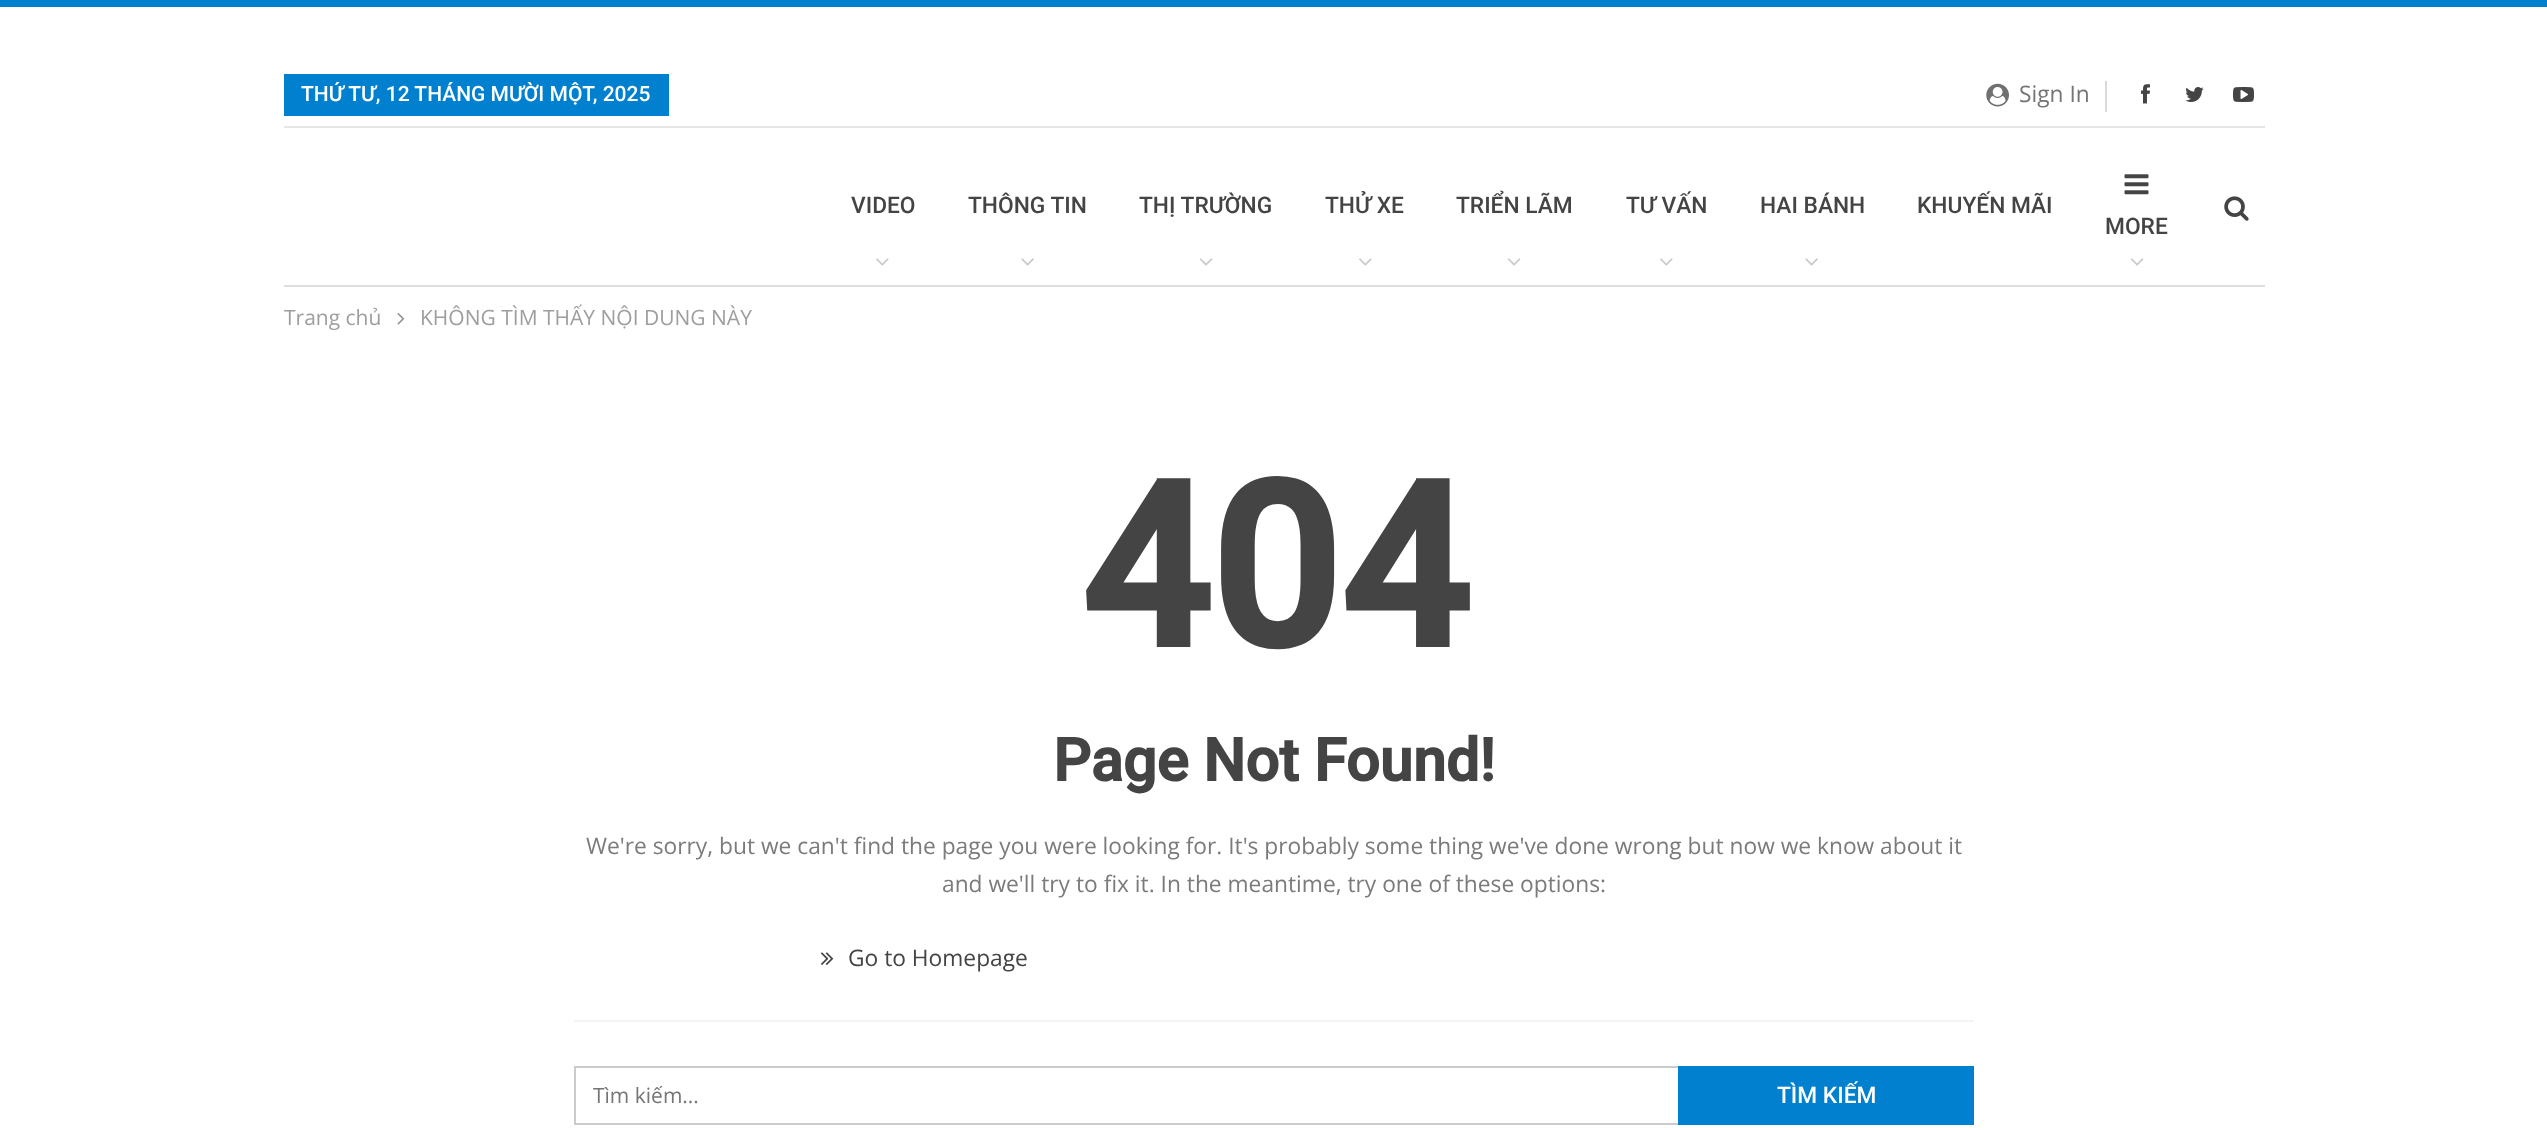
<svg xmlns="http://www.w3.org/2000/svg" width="2547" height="1130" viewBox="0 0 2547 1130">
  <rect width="100%" height="100%" fill="#ffffff"/>
  <rect x="0" y="0" width="2547" height="7" fill="#0080ce"/>
  <rect x="284" y="126" width="1981" height="2" fill="#e6e6e6"/>
  <rect x="284" y="74" width="385" height="42" fill="#0080ce"/>
  <text x="301" y="101" font-family="Roboto" font-size="21" font-weight="500" fill="#ffffff">THỨ TƯ, 12 THÁNG MƯỜI MỘT, 2025</text>
  <image x="1986" y="83" width="23" height="24" href="img1.png"/>
  <text x="2019" y="102" font-family="Open Sans" font-size="22.75" fill="#757575">Sign In</text>
  <rect x="2105" y="81" width="2" height="31" fill="#d9d9d9"/>
  <image x="2141" y="84" width="9" height="20" href="img2.png"/>
  <image x="2185" y="87" width="19" height="15" href="img3.png"/>
  <image x="2233" y="87" width="21" height="15" href="img4.png"/>
  <rect x="284" y="285" width="1981" height="2" fill="#dedede"/>
  <text x="851" y="213" font-family="Roboto" font-size="22.75" font-weight="500" fill="#444444">VIDEO</text>
  <image x="876" y="258" width="13" height="8" href="img5.png"/>
  <text x="968" y="213" font-family="Roboto" font-size="22.75" font-weight="500" fill="#444444">THÔNG TIN</text>
  <image x="1021" y="258" width="13" height="8" href="img6.png"/>
  <text x="1139" y="213" font-family="Roboto" font-size="22.75" font-weight="500" fill="#444444">THỊ TRƯỜNG</text>
  <image x="1199" y="258" width="14" height="8" href="img7.png"/>
  <text x="1325" y="213" font-family="Roboto" font-size="22.75" font-weight="500" fill="#444444">THỬ XE</text>
  <image x="1359" y="258" width="13" height="8" href="img5.png"/>
  <text x="1456" y="213" font-family="Roboto" font-size="22.75" font-weight="500" fill="#444444">TRIỂN LÃM</text>
  <image x="1507" y="258" width="14" height="8" href="img7.png"/>
  <text x="1626" y="213" font-family="Roboto" font-size="22.75" font-weight="500" fill="#444444">TƯ VẤN</text>
  <image x="1660" y="258" width="13" height="8" href="img5.png"/>
  <text x="1760" y="213" font-family="Roboto" font-size="22.75" font-weight="500" fill="#444444">HAI BÁNH</text>
  <image x="1805" y="258" width="13" height="8" href="img6.png"/>
  <text x="1917" y="213" font-family="Roboto" font-size="22.75" font-weight="500" fill="#444444">KHUYẾN MÃI</text>
  <image x="2124" y="174" width="25" height="21" href="img8.png"/>
  <text x="2105" y="234" font-family="Roboto" font-size="22.75" font-weight="500" fill="#444444">MORE</text>
  <image x="2130" y="258" width="14" height="8" href="img7.png"/>
  <image x="2224" y="196" width="25" height="25" href="img9.png"/>
  <text x="284" y="325" font-family="Open Sans" font-size="21" fill="#9e9e9e">Trang chủ</text>
  <image x="397" y="313" width="8" height="12" href="img10.png"/>
  <text x="420" y="325" font-family="Open Sans" font-size="21" fill="#9e9e9e">KHÔNG TÌM THẤY NỘI DUNG NÀY</text>
  <text x="1080" y="647" font-family="Roboto" font-size="228" font-weight="bold" fill="#444444">404</text>
  <text x="1053" y="781" font-family="Roboto" font-size="59.5" font-weight="bold" fill="#444444">Page Not Found!</text>
  <text x="586" y="854" font-family="Open Sans" font-size="22.75" fill="#7b7b7b">We're sorry, but we can't find the page you were looking for. It's probably some thing we've done wrong but now we know about it</text>
  <text x="942" y="892" font-family="Open Sans" font-size="22.75" fill="#7b7b7b">and we'll try to fix it. In the meantime, try one of these options:</text>
  <image x="821" y="952" width="13" height="13" href="img11.png"/>
  <text x="848" y="966" font-family="Open Sans" font-size="22.75" fill="#444444">Go to Homepage</text>
  <rect x="574" y="1020" width="1400" height="2" fill="#f4f4f4"/>
  <rect x="575" y="1067" width="1398" height="57" fill="none" stroke="#cbcbcb" stroke-width="2"/>
  <text x="593" y="1103" font-family="Open Sans" font-size="21" fill="#757575">Tìm kiếm...</text>
  <rect x="1678" y="1066" width="296" height="59" fill="#0080ce"/>
  <text x="1777" y="1103" font-family="Roboto" font-size="22.75" font-weight="500" fill="#ffffff">TÌM KIẾM</text>
</svg>
